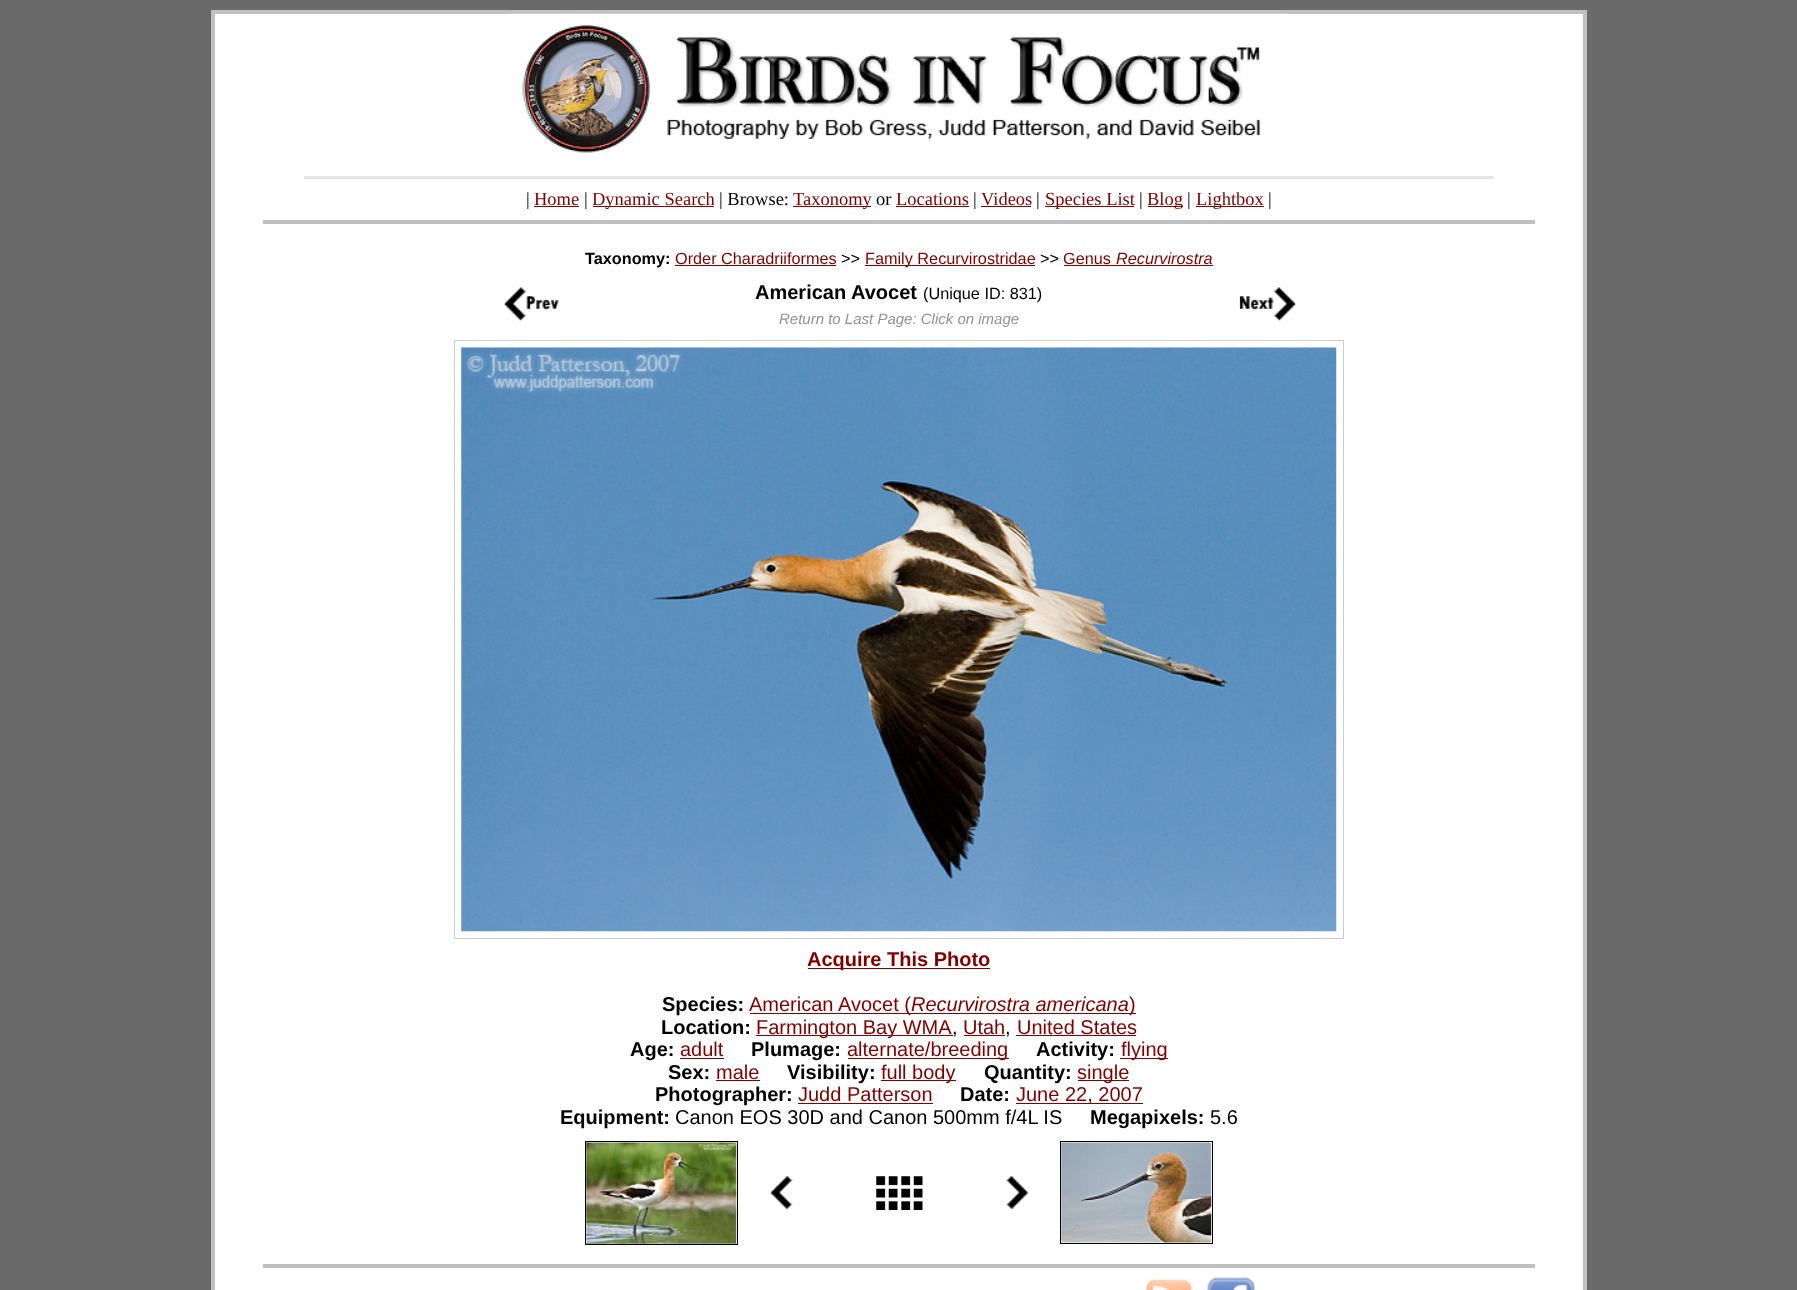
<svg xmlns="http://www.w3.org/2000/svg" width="1797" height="1290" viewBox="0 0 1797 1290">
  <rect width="100%" height="100%" fill="#6a6a6a"/>
  <rect x="215" y="14" width="1368" height="1276" fill="#ffffff"/>
  <rect x="211" y="10" width="1375" height="4" fill="#c0c0c0"/>
  <rect x="1583" y="10" width="4" height="1280" fill="#c0c0c0"/>
  <rect x="211" y="10" width="4" height="1280" fill="#c0c0c0"/>
  <image x="509" y="13" width="779" height="140" href="img1.png"/>
  <rect x="304" y="176" width="1190" height="3" fill="#e6e6e6"/>
  <text x="526" y="205" font-family="Liberation Serif" font-size="18.5" fill="#000000">|</text>
  <text x="534" y="205" font-family="Liberation Serif" font-size="18.5" fill="#800000">Home</text>
  <rect x="534" y="206" width="45" height="1" fill="#800000"/>
  <text x="584" y="205" font-family="Liberation Serif" font-size="18.5" fill="#000000">|</text>
  <rect x="593" y="206" width="121" height="1" fill="#800000"/>
  <text x="592" y="205" font-family="Liberation Serif" font-size="18.5" fill="#800000">Dynamic Search</text>
  <text x="719" y="205" font-family="Liberation Serif" font-size="18.5" fill="#000000">| Browse:</text>
  <rect x="793" y="206" width="78" height="1" fill="#800000"/>
  <text x="793" y="205" font-family="Liberation Serif" font-size="18.5" fill="#800000">Taxonomy</text>
  <text x="876" y="205" font-family="Liberation Serif" font-size="18.5" fill="#000000">or</text>
  <text x="896" y="205" font-family="Liberation Serif" font-size="18.5" fill="#800000">Locations</text>
  <rect x="896" y="206" width="73" height="1" fill="#800000"/>
  <text x="973" y="205" font-family="Liberation Serif" font-size="18.5" fill="#000000">|</text>
  <text x="981" y="205" font-family="Liberation Serif" font-size="18.5" fill="#800000">Videos</text>
  <rect x="981" y="206" width="50" height="1" fill="#800000"/>
  <text x="1036" y="205" font-family="Liberation Serif" font-size="18.5" fill="#000000">|</text>
  <rect x="1045" y="206" width="89" height="1" fill="#800000"/>
  <text x="1045" y="205" font-family="Liberation Serif" font-size="18.5" fill="#800000">Species List</text>
  <text x="1139" y="205" font-family="Liberation Serif" font-size="18.5" fill="#000000">|</text>
  <rect x="1148" y="206" width="35" height="1" fill="#800000"/>
  <text x="1147" y="205" font-family="Liberation Serif" font-size="18.5" fill="#800000">Blog</text>
  <text x="1187" y="205" font-family="Liberation Serif" font-size="18.5" fill="#000000">|</text>
  <rect x="1196" y="206" width="68" height="1" fill="#800000"/>
  <text x="1196" y="205" font-family="Liberation Serif" font-size="18.5" fill="#800000">Lightbox</text>
  <text x="1268" y="205" font-family="Liberation Serif" font-size="18.5" fill="#000000">|</text>
  <rect x="263" y="220" width="1272" height="4" fill="#c0c0c0"/>
  <text x="585" y="264" font-family="Liberation Sans" font-size="16.25" font-weight="bold" fill="#000000">Taxonomy:</text>
  <text x="675" y="264" font-family="Liberation Sans" font-size="16.25" fill="#800000">Order Charadriiformes</text>
  <rect x="675" y="265" width="161" height="1" fill="#800000"/>
  <text x="841" y="264" font-family="Liberation Sans" font-size="16.25" fill="#000000">&gt;&gt;</text>
  <rect x="865" y="265" width="170" height="1" fill="#800000"/>
  <text x="865" y="264" font-family="Liberation Sans" font-size="16.25" fill="#800000">Family Recurvirostridae</text>
  <text x="1040" y="264" font-family="Liberation Sans" font-size="16.25" fill="#000000">&gt;&gt;</text>
  <text x="1063" y="264" font-family="Liberation Sans" font-size="16.25" fill="#800000">Genus</text>
  <rect x="1064" y="265" width="149" height="1" fill="#800000"/>
  <text x="1116" y="264" font-family="Liberation Sans" font-size="16.25" font-style="italic" fill="#800000">Recurvirostra</text>
  <image x="503" y="287" width="56" height="35" href="img2.png"/>
  <text x="755" y="299" font-family="Liberation Sans" font-size="20" font-weight="bold" fill="#000000">American Avocet</text>
  <text x="923" y="299" font-family="Liberation Sans" font-size="16.25" fill="#000000">(Unique ID: 831)</text>
  <text x="779" y="324" font-family="Liberation Sans" font-size="15" font-style="italic" fill="#919191">Return to Last Page: Click on image</text>
  <image x="1239" y="287" width="58" height="35" href="img3.png"/>
  <rect x="454.5" y="340.5" width="889" height="598" fill="none" stroke="#cccccc"/>
  <image x="461" y="347" width="876" height="585" href="img4.png"/>
  <rect x="808" y="968" width="182" height="1" fill="#800000"/>
  <text x="807" y="966" font-family="Liberation Sans" font-size="20" font-weight="bold" fill="#800000">Acquire This Photo</text>
  <text x="662" y="1011" font-family="Liberation Sans" font-size="20" font-weight="bold" fill="#000000">Species:</text>
  <rect x="750" y="1013" width="161" height="1" fill="#800000"/>
  <text x="749" y="1011" font-family="Liberation Sans" font-size="20" fill="#800000">American Avocet (</text>
  <rect x="911" y="1013" width="225" height="1" fill="#800000"/>
  <text x="911" y="1011" font-family="Liberation Sans" font-size="20" font-style="italic" fill="#800000">Recurvirostra americana</text>
  <text x="1129" y="1011" font-family="Liberation Sans" font-size="20" fill="#800000">)</text>
  <text x="661" y="1034" font-family="Liberation Sans" font-size="20" font-weight="bold" fill="#000000">Location:</text>
  <rect x="756" y="1035" width="197" height="1" fill="#800000"/>
  <text x="756" y="1034" font-family="Liberation Sans" font-size="20" fill="#800000">Farmington Bay WMA</text>
  <text x="952" y="1034" font-family="Liberation Sans" font-size="20" fill="#000000">,</text>
  <text x="963" y="1034" font-family="Liberation Sans" font-size="20" fill="#800000">Utah</text>
  <rect x="964" y="1035" width="41" height="1" fill="#800000"/>
  <text x="1005" y="1034" font-family="Liberation Sans" font-size="20" fill="#000000">,</text>
  <text x="1017" y="1034" font-family="Liberation Sans" font-size="20" fill="#800000">United States</text>
  <rect x="1016" y="1035" width="120" height="1" fill="#800000"/>
  <text x="630" y="1056" font-family="Liberation Sans" font-size="20" font-weight="bold" fill="#000000">Age:</text>
  <text x="680" y="1056" font-family="Liberation Sans" font-size="20" fill="#800000">adult</text>
  <rect x="680" y="1058" width="44" height="1" fill="#800000"/>
  <text x="751" y="1056" font-family="Liberation Sans" font-size="20" font-weight="bold" fill="#000000">Plumage:</text>
  <rect x="848" y="1058" width="161" height="1" fill="#800000"/>
  <text x="847" y="1056" font-family="Liberation Sans" font-size="20" fill="#800000">alternate/breeding</text>
  <text x="1036" y="1056" font-family="Liberation Sans" font-size="20" font-weight="bold" fill="#000000">Activity:</text>
  <rect x="1120" y="1058" width="48" height="1" fill="#800000"/>
  <text x="1121" y="1056" font-family="Liberation Sans" font-size="20" fill="#800000">flying</text>
  <text x="668" y="1079" font-family="Liberation Sans" font-size="20" font-weight="bold" fill="#000000">Sex:</text>
  <text x="716" y="1079" font-family="Liberation Sans" font-size="20" fill="#800000">male</text>
  <rect x="716" y="1080" width="44" height="1" fill="#800000"/>
  <text x="787" y="1079" font-family="Liberation Sans" font-size="20" font-weight="bold" fill="#000000">Visibility:</text>
  <rect x="881" y="1080" width="75" height="1" fill="#800000"/>
  <text x="881" y="1079" font-family="Liberation Sans" font-size="20" fill="#800000">full body</text>
  <text x="984" y="1079" font-family="Liberation Sans" font-size="20" font-weight="bold" fill="#000000">Quantity:</text>
  <rect x="1078" y="1080" width="51" height="1" fill="#800000"/>
  <text x="1077" y="1079" font-family="Liberation Sans" font-size="20" fill="#800000">single</text>
  <text x="655" y="1101" font-family="Liberation Sans" font-size="20" font-weight="bold" fill="#000000">Photographer:</text>
  <text x="798" y="1101" font-family="Liberation Sans" font-size="20" fill="#800000">Judd Patterson</text>
  <rect x="798" y="1103" width="135" height="1" fill="#800000"/>
  <text x="960" y="1101" font-family="Liberation Sans" font-size="20" font-weight="bold" fill="#000000">Date:</text>
  <rect x="1016" y="1103" width="127" height="1" fill="#800000"/>
  <text x="1016" y="1101" font-family="Liberation Sans" font-size="20" fill="#800000">June 22, 2007</text>
  <text x="560" y="1124" font-family="Liberation Sans" font-size="20" font-weight="bold" fill="#000000">Equipment:</text>
  <text x="675" y="1124" font-family="Liberation Sans" font-size="20" fill="#000000">Canon EOS 30D and Canon 500mm f/4L IS</text>
  <text x="1090" y="1124" font-family="Liberation Sans" font-size="20" font-weight="bold" fill="#000000">Megapixels:</text>
  <text x="1210" y="1124" font-family="Liberation Sans" font-size="20" fill="#000000">5.6</text>
  <rect x="585.5" y="1141.5" width="152" height="103" fill="none" stroke="#000000"/>
  <image x="586" y="1142" width="151" height="102" href="img5.png"/>
  <image x="770" y="1176" width="23" height="34" href="img6.png"/>
  <image x="876" y="1176" width="47" height="34" href="img7.png"/>
  <image x="1006" y="1176" width="23" height="34" href="img8.png"/>
  <rect x="1060.5" y="1141.5" width="152" height="102" fill="none" stroke="#000000"/>
  <image x="1061" y="1142" width="151" height="101" href="img9.png"/>
  <rect x="263" y="1264" width="1272" height="4" fill="#c0c0c0"/>
  <image x="1145" y="1279" width="48" height="11" href="img10.png"/>
  <image x="1207" y="1277" width="49" height="13" href="img11.png"/>
</svg>
